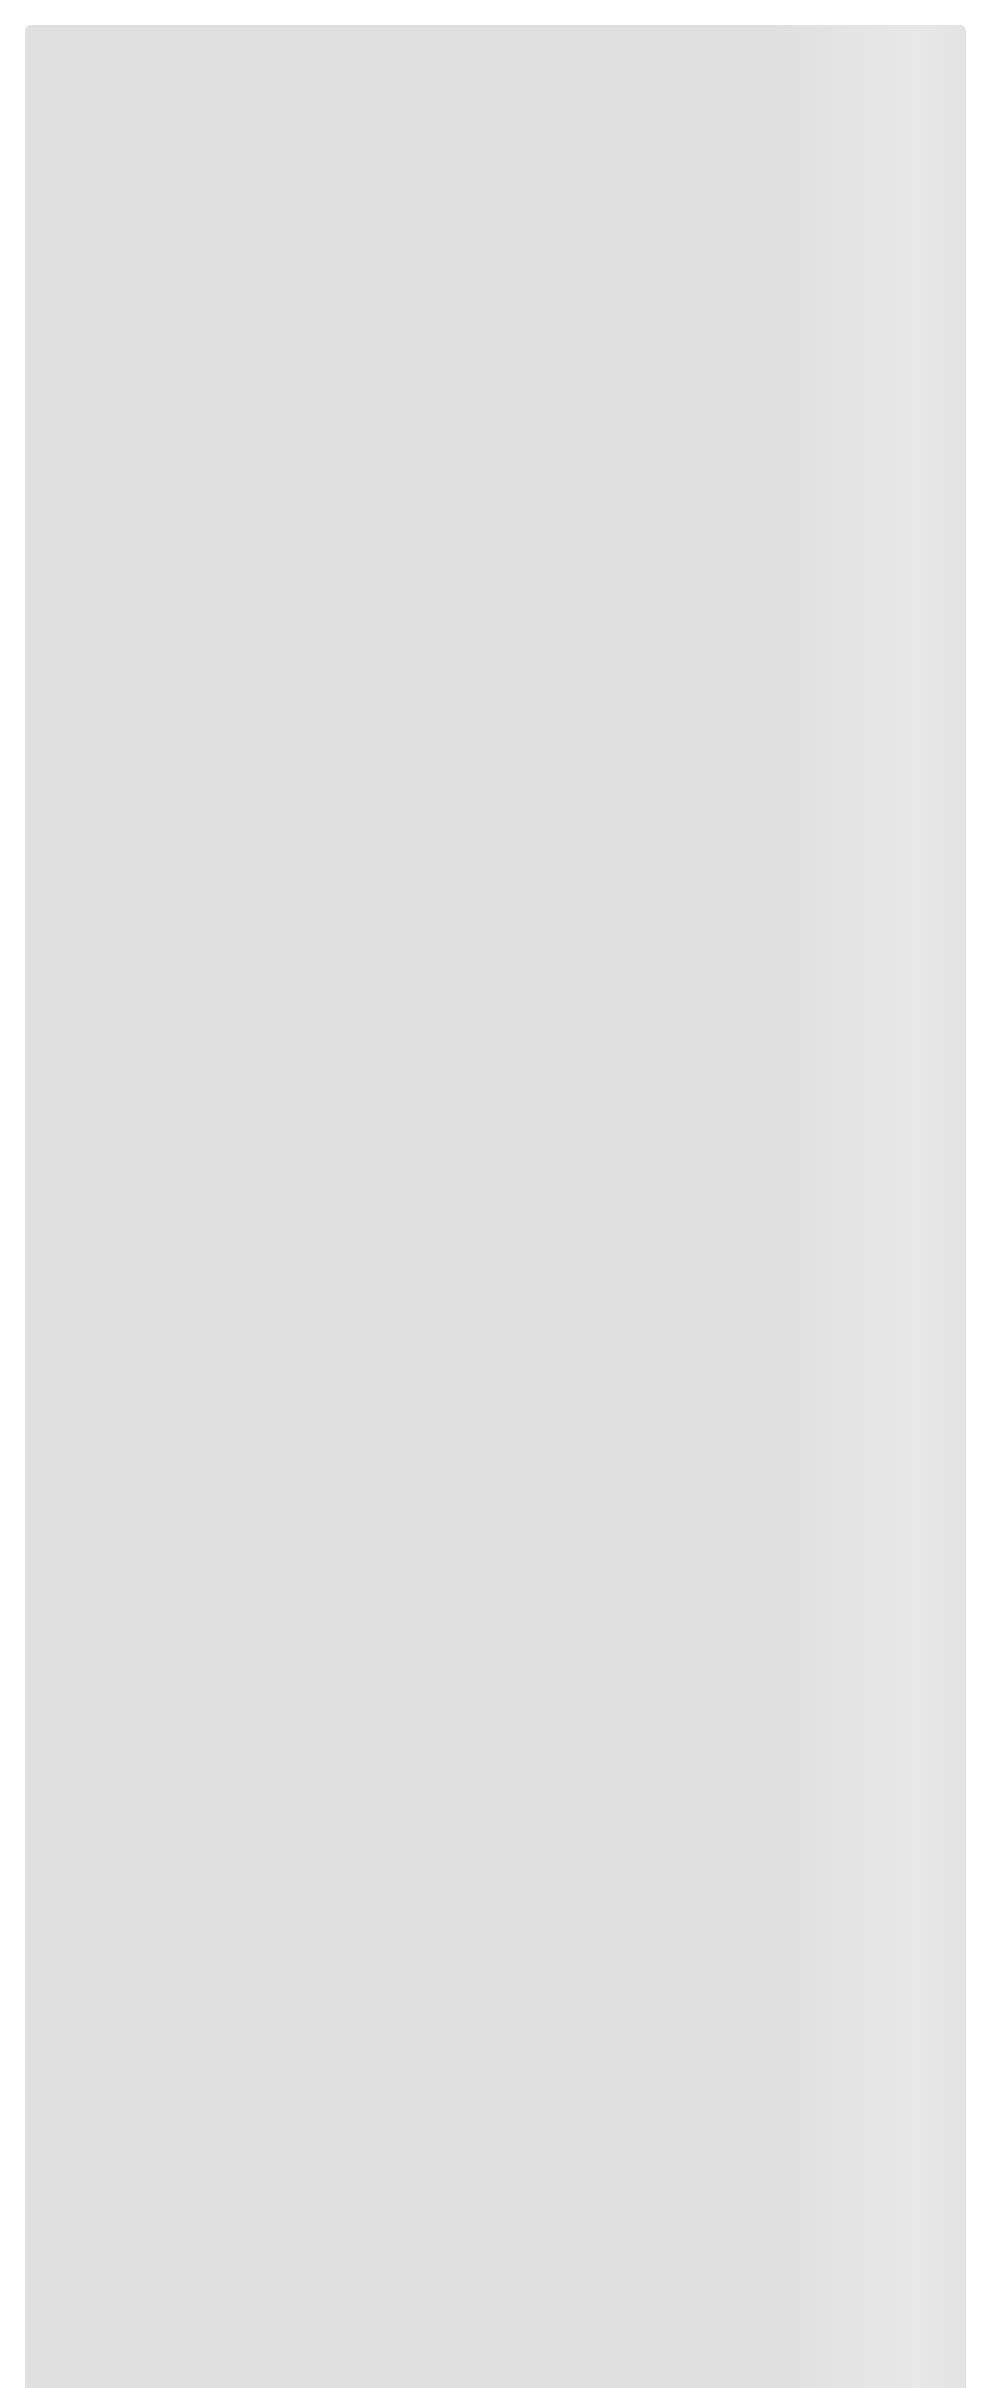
<svg xmlns="http://www.w3.org/2000/svg" width="991" height="2388" viewBox="0 0 991 2388">
  <defs>
    <linearGradient id="g1" gradientUnits="userSpaceOnUse" x1="25" y1="1219" x2="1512" y2="1219"><stop offset="0" stop-color="#e0e0e0"/><stop offset="0.5" stop-color="#e0e0e0"/><stop offset="0.6" stop-color="#e8e8e8"/><stop offset="0.65" stop-color="#e0e0e0"/><stop offset="1" stop-color="#e0e0e0"/></linearGradient>
  </defs>
  <rect width="100%" height="100%" fill="#ffffff"/>
  <rect x="25" y="25" width="941" height="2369" rx="6" fill="url(#g1)"/>
</svg>
